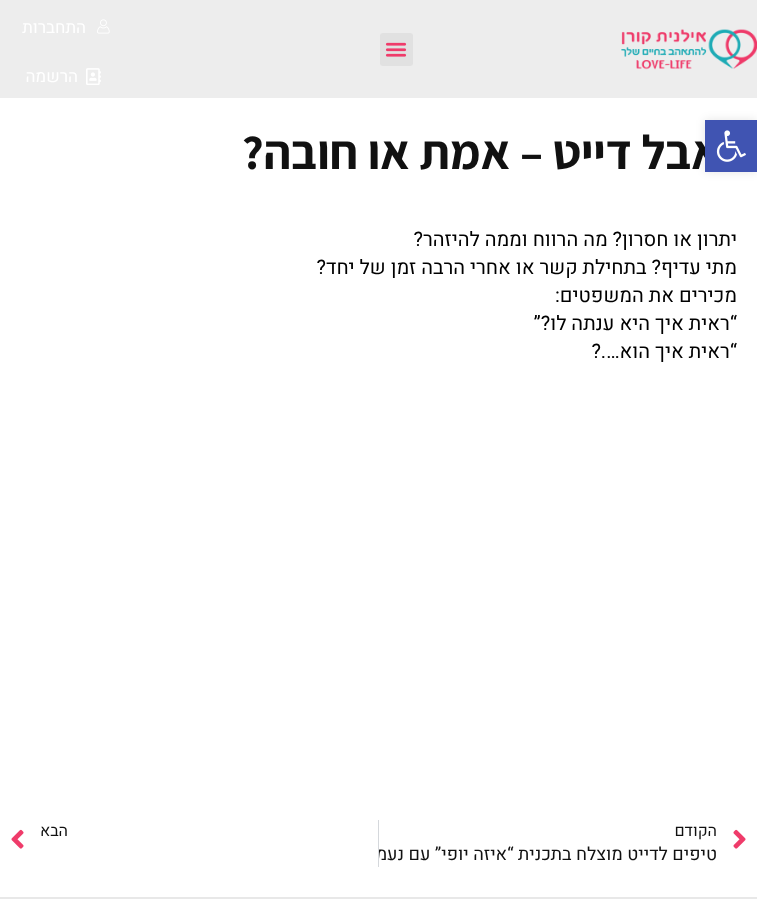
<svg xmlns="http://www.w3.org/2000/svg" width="757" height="911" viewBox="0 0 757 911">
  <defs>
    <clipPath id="clip1"><rect x="379" y="842" width="338" height="25"/></clipPath>
    <filter id="blur1" x="-50%" y="-200%" width="200%" height="500%"><feGaussianBlur stdDeviation="5"/></filter>
  </defs>
  <rect width="100%" height="100%" fill="#ffffff"/>
  <rect x="0" y="0" width="757" height="98" fill="#ededed"/>
  <image x="621" y="29" width="136" height="41" href="img1.png"/>
  <rect x="380" y="33" width="33" height="33" rx="3" fill="#e1e1e1"/>
  <image x="385" y="42" width="22" height="15" href="img2.png"/>
  <image x="97" y="19" width="13" height="15" href="img3.png"/>
  <text x="86" y="33" font-family="Heebo" font-size="17" direction="rtl" fill="#ffffff">התחברות</text>
  <image x="86" y="68" width="15" height="17" href="img4.png"/>
  <text x="78" y="82" font-family="Heebo" font-size="17" direction="rtl" fill="#ffffff">הרשמה</text>
  <text x="747" y="169" font-family="Assistant" font-size="48" font-weight="bold" direction="rtl" fill="#111111">דאבל דייט – אמת או חובה?</text>
  <text x="737" y="246" font-family="Heebo" font-size="20" direction="rtl" fill="#000000">יתרון או חסרון? מה הרווח וממה להיזהר?</text>
  <text x="737" y="274" font-family="Heebo" font-size="20" direction="rtl" fill="#000000">מתי עדיף? בתחילת קשר או אחרי הרבה זמן של יחד?</text>
  <text x="737" y="302" font-family="Heebo" font-size="20" direction="rtl" fill="#000000">מכירים את המשפטים:</text>
  <text x="737" y="330" font-family="Heebo" font-size="20" direction="rtl" fill="#000000">“ראית איך היא ענתה לו?”</text>
  <text x="737" y="358" font-family="Heebo" font-size="20" direction="rtl" fill="#000000">“ראית איך הוא….?</text>
  <image x="733" y="829" width="13" height="20" href="img5.png"/>
  <text x="717" y="836" font-family="Heebo" font-size="16" direction="rtl" fill="#111111">הקודם</text>
  <g clip-path="url(#clip1)">
    <text x="717" y="860" font-family="Heebo" font-size="18" direction="rtl" fill="#111111">טיפים לדייט מוצלח בתכנית “איזה יופי” עם נעמה</text>
  </g>
  <rect x="378" y="820" width="1" height="47" fill="#d5d8dc"/>
  <text x="68" y="836" font-family="Heebo" font-size="16" direction="rtl" fill="#111111">הבא</text>
  <image x="11" y="829" width="13" height="20" href="img6.png"/>
  <rect x="0" y="897" width="757" height="2" fill="#e8e8e8"/>
  <rect x="705" y="120" width="52" height="52" fill="#000000" fill-opacity="0.1" filter="url(#blur1)"/>
  <rect x="705" y="120" width="52" height="52" fill="#4054b2"/>
  <image x="716" y="130" width="30" height="32" href="img7.png"/>
</svg>
